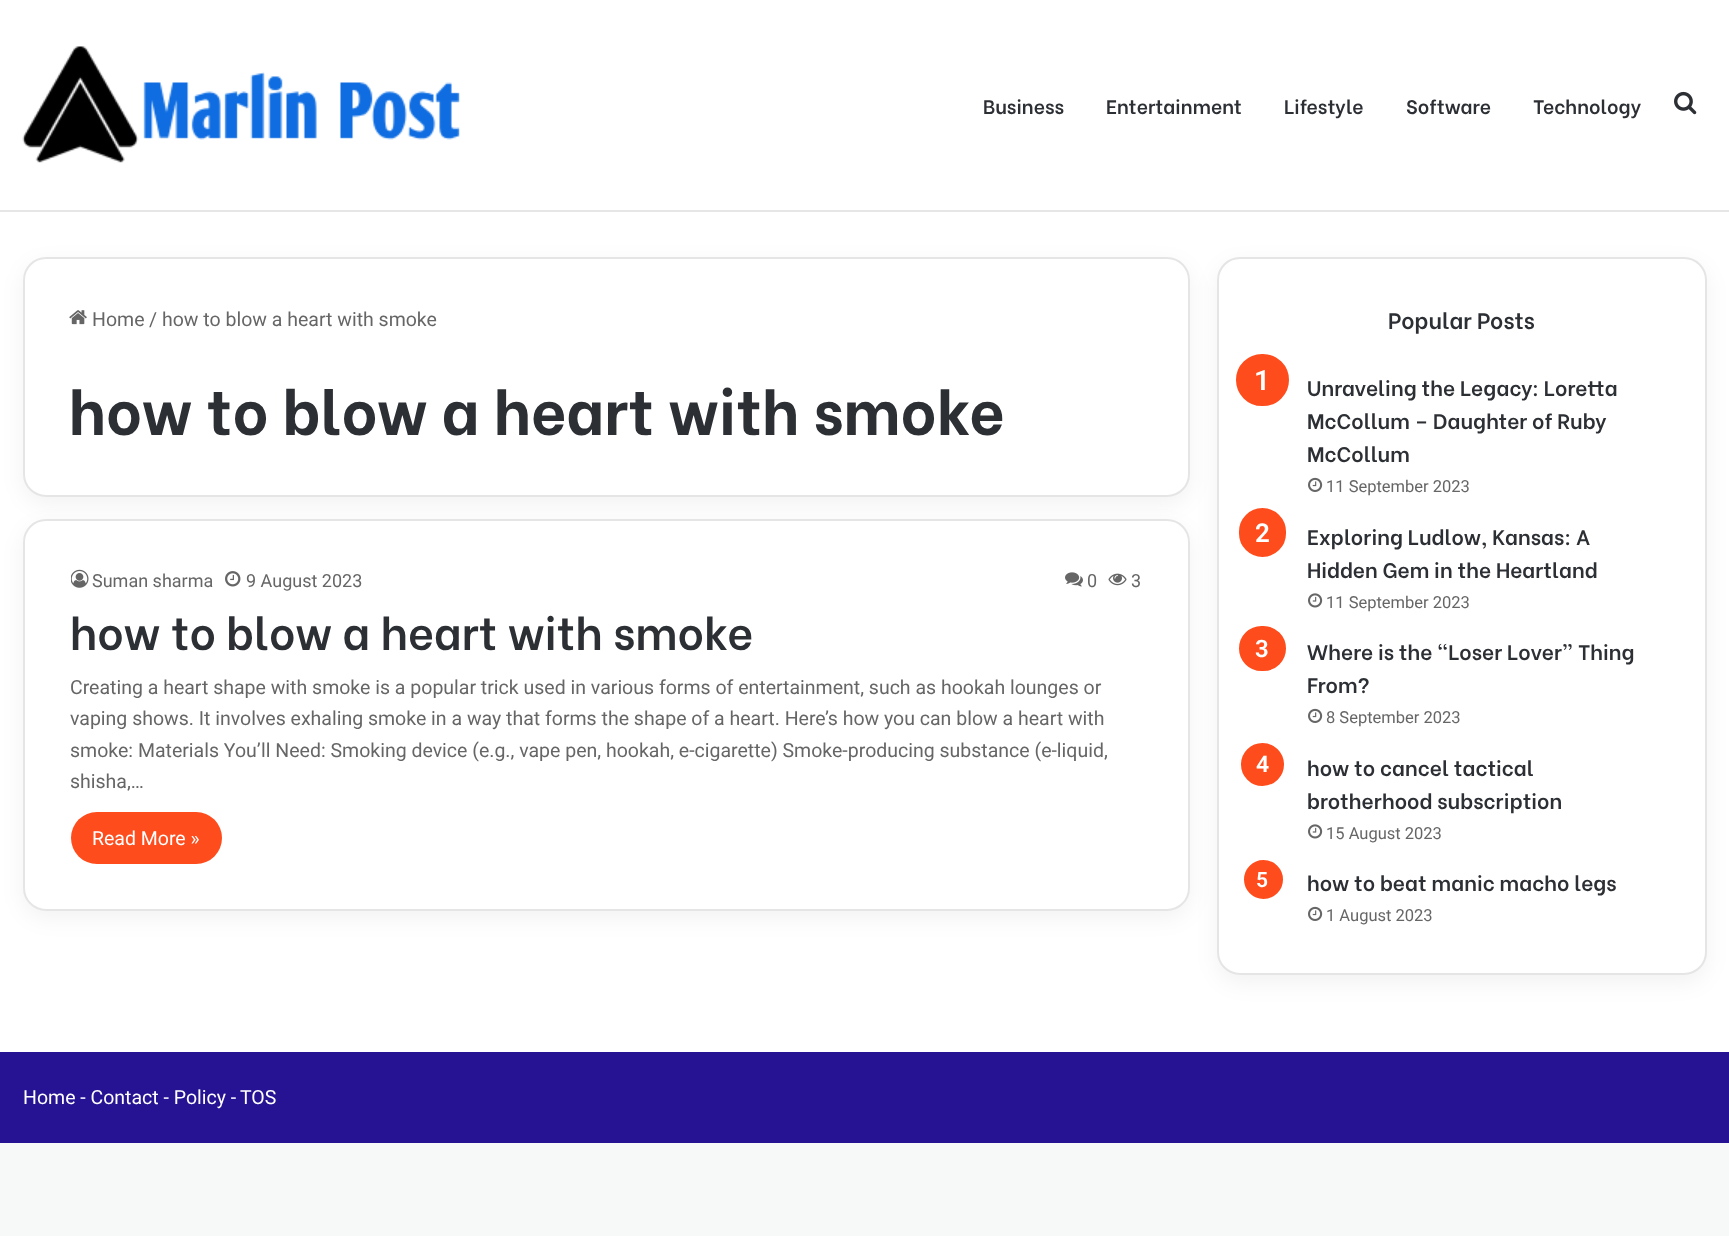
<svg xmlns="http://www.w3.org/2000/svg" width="1729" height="1236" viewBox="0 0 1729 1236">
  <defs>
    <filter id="blur1" x="-50%" y="-200%" width="200%" height="500%"><feGaussianBlur stdDeviation="11"/></filter>
  </defs>
  <rect width="100%" height="100%" fill="#f7f8f8"/>
  <rect x="0" y="0" width="1729" height="1052" fill="#ffffff"/>
  <rect x="0" y="210" width="1729" height="2" fill="#e6e6e6"/>
  <image x="22" y="46" width="438" height="117" href="img1.png"/>
  <text x="983" y="114" font-family="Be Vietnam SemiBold" font-size="19.5" font-weight="600" fill="#2c2f34">Business</text>
  <text x="1106" y="114" font-family="Be Vietnam SemiBold" font-size="19.5" font-weight="600" fill="#2c2f34">Entertainment</text>
  <text x="1284" y="114" font-family="Be Vietnam SemiBold" font-size="19.5" font-weight="600" fill="#2c2f34">Lifestyle</text>
  <text x="1406" y="114" font-family="Be Vietnam SemiBold" font-size="19.5" font-weight="600" fill="#2c2f34">Software</text>
  <text x="1533" y="114" font-family="Be Vietnam SemiBold" font-size="19.5" font-weight="600" fill="#2c2f34">Technology</text>
  <image x="1674" y="91" width="23" height="24" href="img2.png"/>
  <rect x="23" y="264" width="1167" height="240" rx="23" fill="#000000" fill-opacity="0.05" filter="url(#blur1)"/>
  <rect x="23" y="257" width="1167" height="240" rx="23" fill="#ffffff"/>
  <rect x="24" y="258" width="1165" height="238" rx="22" fill="none" stroke="#000000" stroke-opacity="0.1" stroke-width="2"/>
  <image x="69" y="310" width="18" height="15" href="img3.png"/>
  <text x="92" y="326" font-family="Roboto" font-size="19.5" fill="#666666">Home</text>
  <text x="149" y="326" font-family="Roboto" font-size="19.5" fill="#666666">/</text>
  <text x="162" y="326" font-family="Roboto" font-size="19.5" fill="#666666">how to blow a heart with smoke</text>
  <text x="69" y="435" font-family="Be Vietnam" font-size="61.5" font-weight="bold" fill="#2c2f34">how to blow a heart with smoke</text>
  <rect x="23" y="527" width="1167" height="391" rx="23" fill="#000000" fill-opacity="0.05" filter="url(#blur1)"/>
  <rect x="23" y="519" width="1167" height="392" rx="23" fill="#ffffff"/>
  <rect x="24" y="520" width="1165" height="390" rx="22" fill="none" stroke="#000000" stroke-opacity="0.1" stroke-width="2"/>
  <image x="71" y="569" width="18" height="19" href="img4.png"/>
  <text x="92" y="587" font-family="Roboto" font-size="18" fill="#666666">Suman sharma</text>
  <image x="225" y="571" width="16" height="16" href="img5.png"/>
  <text x="246" y="587" font-family="Roboto" font-size="18" fill="#666666">9 August 2023</text>
  <image x="1065" y="572" width="18" height="15" href="img6.png"/>
  <text x="1087" y="587" font-family="Roboto" font-size="18" fill="#666666">0</text>
  <image x="1108" y="573" width="19" height="13" href="img7.png"/>
  <text x="1131" y="587" font-family="Roboto" font-size="18" fill="#666666">3</text>
  <text x="70" y="650" font-family="Be Vietnam SemiBold" font-size="45" font-weight="600" fill="#2c2f34">how to blow a heart with smoke</text>
  <text x="70" y="694" font-family="Roboto" font-size="19.5" fill="#666666">Creating a heart shape with smoke is a popular trick used in various forms of entertainment, such as hookah lounges or</text>
  <text x="70" y="725" font-family="Roboto" font-size="19.5" fill="#666666">vaping shows. It involves exhaling smoke in a way that forms the shape of a heart. Here’s how you can blow a heart with</text>
  <text x="70" y="757" font-family="Roboto" font-size="19.5" fill="#666666">smoke: Materials You’ll Need: Smoking device (e.g., vape pen, hookah, e-cigarette) Smoke-producing substance (e-liquid,</text>
  <text x="70" y="788" font-family="Roboto" font-size="19.5" fill="#666666">shisha,…</text>
  <rect x="71" y="812" width="151" height="52" rx="26" fill="#fe4c1c"/>
  <text x="92" y="845" font-family="Roboto" font-size="19.5" fill="#ffffff">Read More »</text>
  <rect x="1217" y="264" width="490" height="719" rx="23" fill="#000000" fill-opacity="0.05" filter="url(#blur1)"/>
  <rect x="1218" y="258" width="488" height="716" rx="22" fill="#ffffff" stroke="#e5e5e5" stroke-width="2"/>
  <text x="1388" y="329" font-family="Be Vietnam SemiBold" font-size="22.5" font-weight="600" fill="#2c2f34">Popular Posts</text>
  <rect x="1234" y="352" width="57" height="56" rx="28" fill="#fe4c1c" stroke="#ffffff" stroke-width="4"/>
  <text x="1254" y="390" font-family="Roboto" font-size="28" font-weight="600" fill="#ffffff">1</text>
  <text x="1307" y="396" font-family="Be Vietnam SemiBold" font-size="21" font-weight="600" fill="#2c2f34">Unraveling the Legacy: Loretta</text>
  <text x="1307" y="429" font-family="Be Vietnam SemiBold" font-size="21" font-weight="600" fill="#2c2f34">McCollum – Daughter of Ruby</text>
  <text x="1307" y="462" font-family="Be Vietnam SemiBold" font-size="21" font-weight="600" fill="#2c2f34">McCollum</text>
  <image x="1308" y="477" width="15" height="15" href="img8.png"/>
  <text x="1326" y="492" font-family="Roboto" font-size="16.5" fill="#666666">11 September 2023</text>
  <rect x="1237" y="506" width="51" height="53" rx="25.5" fill="#fe4c1c" stroke="#ffffff" stroke-width="4"/>
  <text x="1255" y="542" font-family="Roboto" font-size="26" font-weight="600" fill="#ffffff">2</text>
  <text x="1307" y="545" font-family="Be Vietnam SemiBold" font-size="21" font-weight="600" fill="#2c2f34">Exploring Ludlow, Kansas: A</text>
  <text x="1307" y="578" font-family="Be Vietnam SemiBold" font-size="21" font-weight="600" fill="#2c2f34">Hidden Gem in the Heartland</text>
  <image x="1308" y="593" width="15" height="15" href="img9.png"/>
  <text x="1326" y="608" font-family="Roboto" font-size="16.5" fill="#666666">11 September 2023</text>
  <rect x="1237.5" y="624.5" width="50" height="48" rx="24" fill="#fe4c1c" stroke="#ffffff" stroke-width="3"/>
  <text x="1255" y="657" font-family="Roboto" font-size="24" font-weight="600" fill="#ffffff">3</text>
  <text x="1307" y="660" font-family="Be Vietnam SemiBold" font-size="21" font-weight="600" fill="#2c2f34">Where is the “Loser Lover” Thing</text>
  <text x="1307" y="693" font-family="Be Vietnam SemiBold" font-size="21" font-weight="600" fill="#2c2f34">From?</text>
  <image x="1308" y="708" width="15" height="15" href="img8.png"/>
  <text x="1326" y="723" font-family="Roboto" font-size="16.5" fill="#666666">8 September 2023</text>
  <circle cx="1262.5" cy="764.5" r="23" fill="#fe4c1c" stroke="#ffffff" stroke-width="3"/>
  <text x="1256" y="772" font-family="Roboto" font-size="23" font-weight="600" fill="#ffffff">4</text>
  <text x="1307" y="776" font-family="Be Vietnam SemiBold" font-size="21" font-weight="600" fill="#2c2f34">how to cancel tactical</text>
  <text x="1307" y="809" font-family="Be Vietnam SemiBold" font-size="21" font-weight="600" fill="#2c2f34">brotherhood subscription</text>
  <image x="1308" y="824" width="15" height="15" href="img9.png"/>
  <text x="1326" y="839" font-family="Roboto" font-size="16.5" fill="#666666">15 August 2023</text>
  <circle cx="1263.5" cy="879.5" r="21" fill="#fe4c1c" stroke="#ffffff" stroke-width="3"/>
  <text x="1256" y="887" font-family="Roboto" font-size="21" font-weight="600" fill="#ffffff">5</text>
  <text x="1307" y="891" font-family="Be Vietnam SemiBold" font-size="21" font-weight="600" fill="#2c2f34">how to beat manic macho legs</text>
  <image x="1308" y="906" width="15" height="15" href="img8.png"/>
  <text x="1326" y="921" font-family="Roboto" font-size="16.5" fill="#666666">1 August 2023</text>
  <rect x="0" y="1052" width="1729" height="91" fill="#261393"/>
  <text x="23" y="1104" font-family="Roboto" font-size="19.5" fill="#ffffff">Home - Contact - Policy -</text>
  <text x="240" y="1104" font-family="Roboto" font-size="19.5" fill="#ffffff">TOS</text>
</svg>
